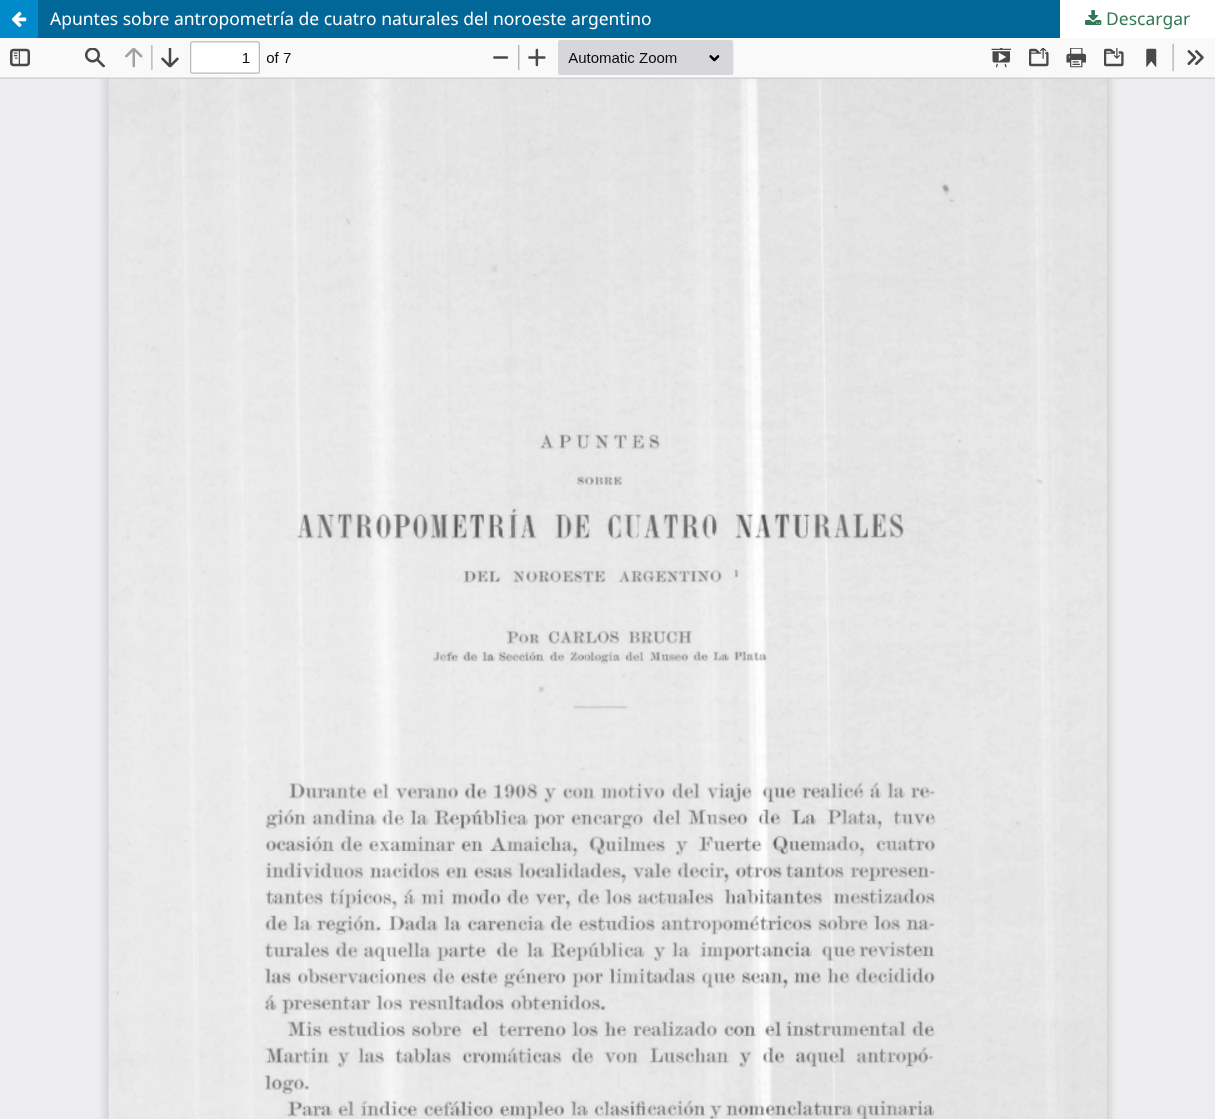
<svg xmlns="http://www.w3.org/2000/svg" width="1215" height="1119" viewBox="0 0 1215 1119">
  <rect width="100%" height="100%" fill="#ffffff"/>
  <rect x="38" y="0" width="1022" height="38" fill="#006798"/>
  <rect x="0" y="0" width="38" height="38" fill="#008acb"/>
  <image x="11" y="11" width="16" height="16" href="img1.png"/>
  <text x="50" y="25" font-family="Noto Sans" font-size="17.5" fill="#ffffff">Apuntes sobre antropometría de cuatro naturales del noroeste argentino</text>
  <image x="1085" y="10" width="17" height="15" href="img2.png"/>
  <text x="1106" y="25" font-family="Noto Sans" font-size="17.5" fill="#337755">Descargar</text>
  <image x="0" y="38" width="1215" height="1081" href="img3.png"/>
</svg>
